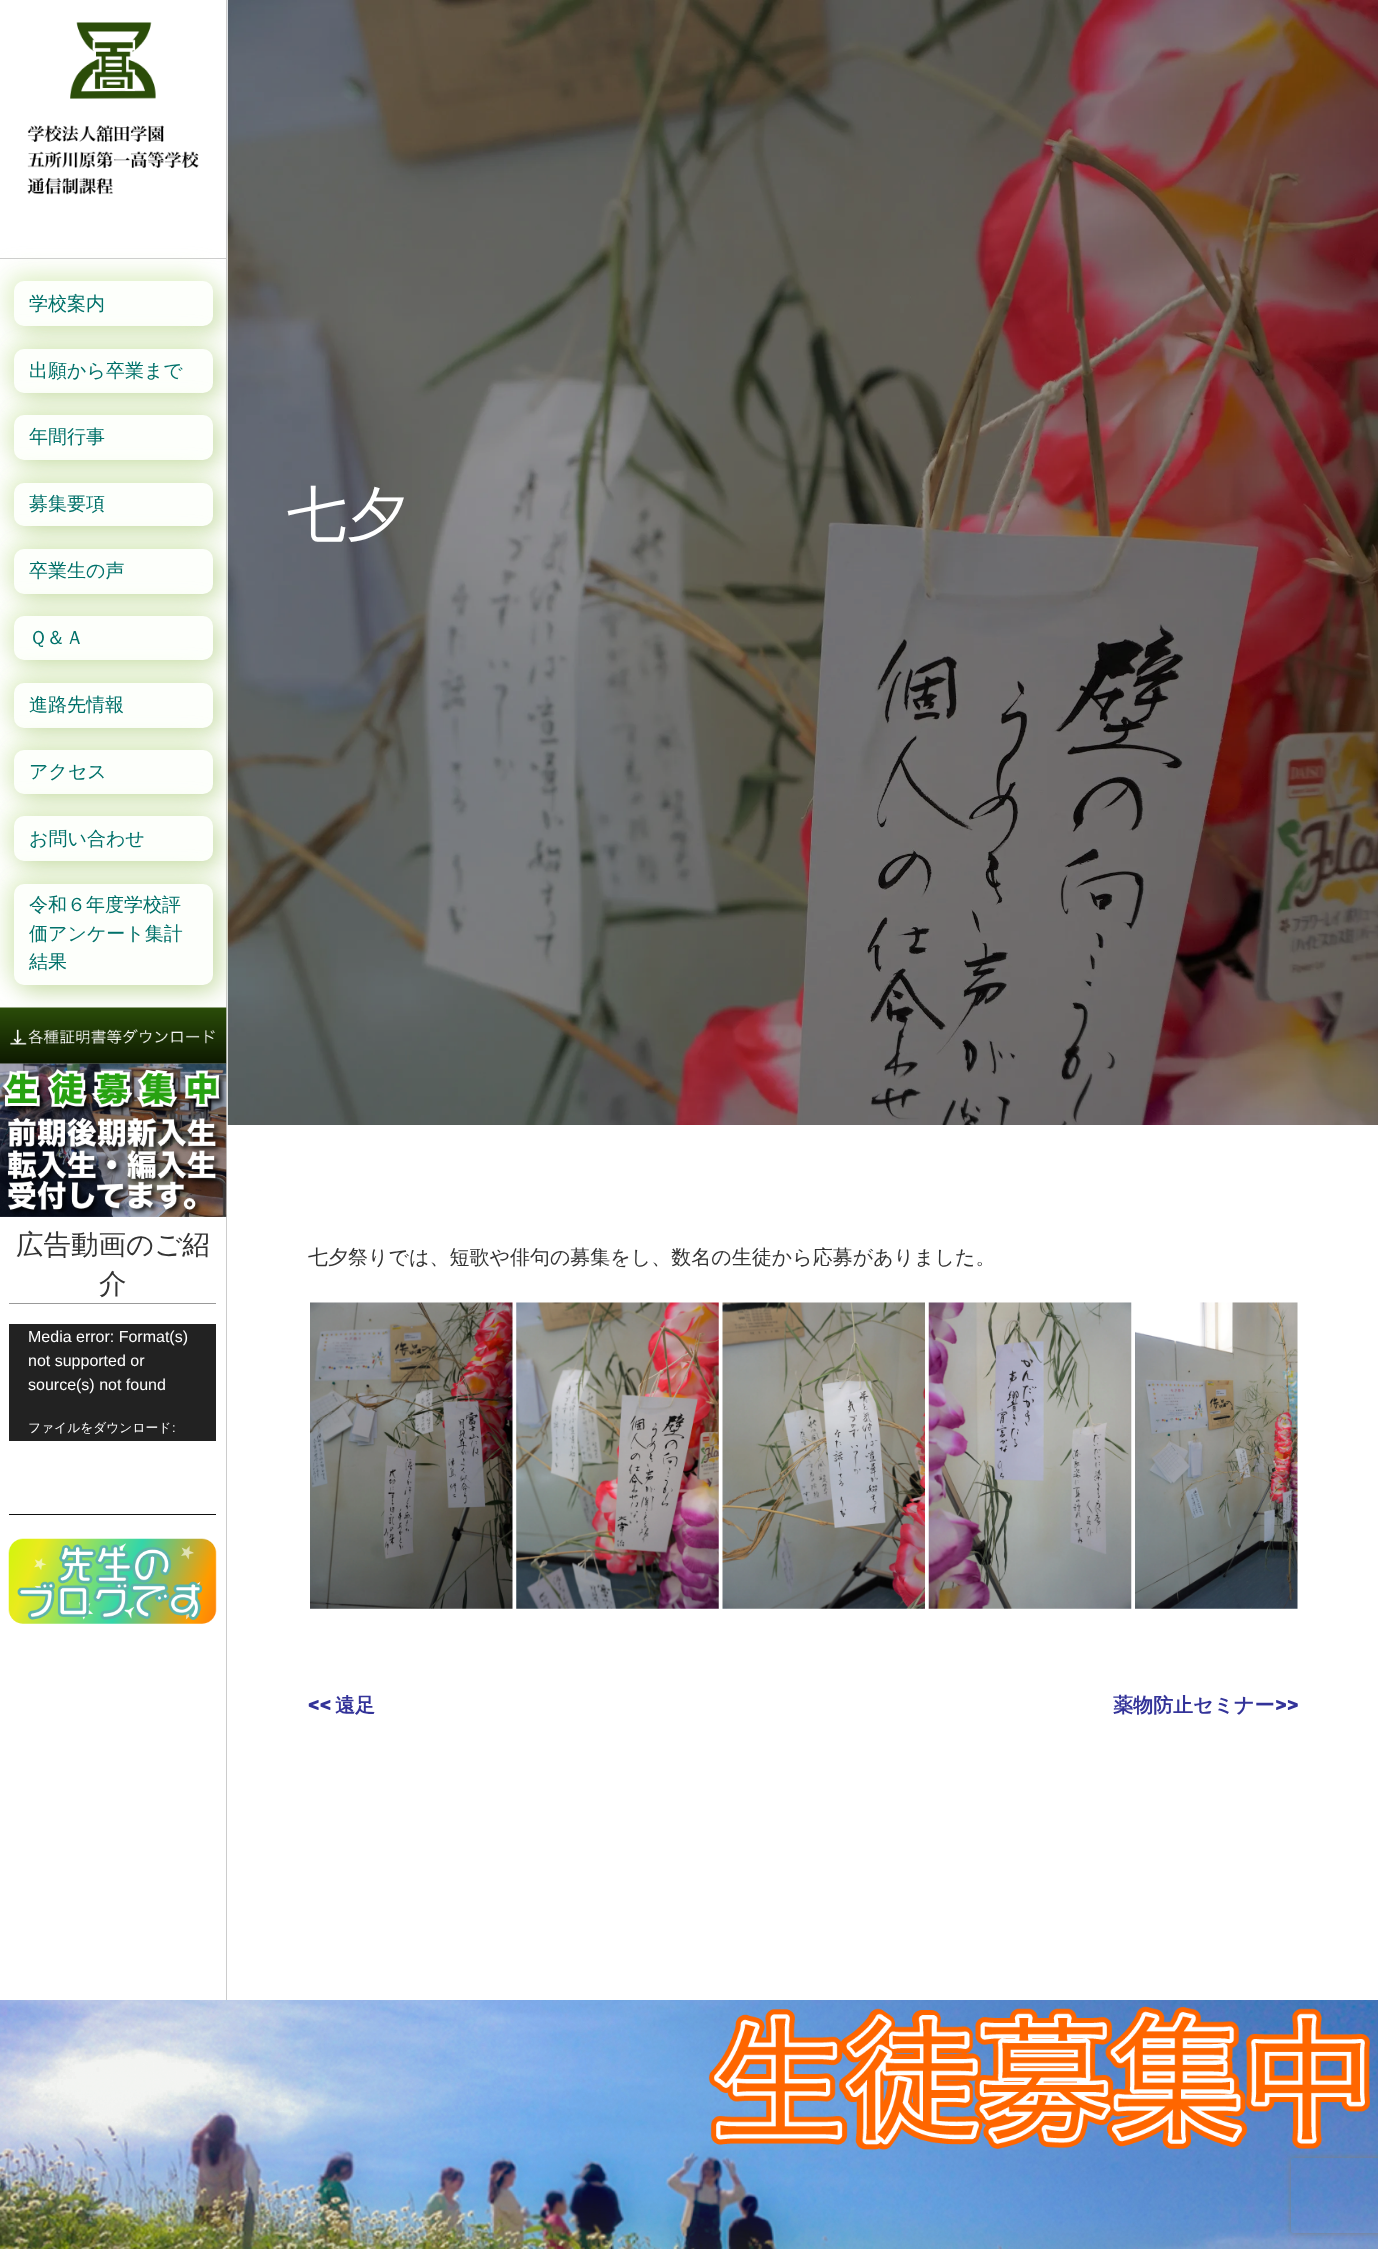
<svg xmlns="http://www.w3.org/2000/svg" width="1378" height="2249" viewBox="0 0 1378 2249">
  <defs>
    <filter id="blur1" x="-50%" y="-200%" width="200%" height="500%"><feGaussianBlur stdDeviation="12.5"/></filter>
    <clipPath id="clip1"><path d="M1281 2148H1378V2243H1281ZM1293.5 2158H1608.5C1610 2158 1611 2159 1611 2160.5V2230.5C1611 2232 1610 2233 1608.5 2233H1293.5C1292 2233 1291 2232 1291 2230.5V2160.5C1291 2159 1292 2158 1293.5 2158Z" clip-rule="evenodd"/></clipPath>
    <filter id="blur2" x="-50%" y="-200%" width="200%" height="500%"><feGaussianBlur stdDeviation="3"/></filter>
  </defs>
  <rect width="100%" height="100%" fill="#ffffff"/>
  <rect x="226" y="0" width="1" height="2000" fill="#cccccc"/>
  <rect x="0" y="258" width="226" height="1" fill="#cccccc"/>
  <image x="27" y="22" width="172" height="173" href="img1.png"/>
  <rect x="20" y="288" width="199" height="45" rx="10" fill="#c8dca8" filter="url(#blur1)"/>
  <rect x="8" y="275" width="198" height="45" rx="10" fill="#e4f3ce" filter="url(#blur1)"/>
  <rect x="14" y="281" width="199" height="45" rx="10" fill="#fdfffb"/>
  <rect x="8" y="343" width="198" height="43" rx="10" fill="#e4f3ce" filter="url(#blur1)"/>
  <text x="29" y="310" font-family="WenQuanYi Zen Hei" font-size="19" font-weight="500" fill="#00716a">学校案内</text>
  <rect x="20" y="355" width="199" height="44" rx="10" fill="#c8dca8" filter="url(#blur1)"/>
  <rect x="14" y="349" width="199" height="44" rx="10" fill="#fdfffb"/>
  <rect x="8" y="409" width="198" height="45" rx="10" fill="#e4f3ce" filter="url(#blur1)"/>
  <text x="29" y="377" font-family="WenQuanYi Zen Hei" font-size="19" font-weight="500" fill="#00716a">出願から卒業まで</text>
  <rect x="20" y="421" width="199" height="45" rx="10" fill="#c8dca8" filter="url(#blur1)"/>
  <rect x="14" y="415" width="199" height="45" rx="10" fill="#fdfffb"/>
  <rect x="8" y="476" width="198" height="44" rx="10" fill="#e4f3ce" filter="url(#blur1)"/>
  <text x="29" y="443" font-family="WenQuanYi Zen Hei" font-size="19" font-weight="500" fill="#00716a">年間行事</text>
  <rect x="20" y="489" width="199" height="44" rx="10" fill="#c8dca8" filter="url(#blur1)"/>
  <rect x="14" y="483" width="199" height="43" rx="10" fill="#fdfffb"/>
  <rect x="8" y="543" width="198" height="45" rx="10" fill="#e4f3ce" filter="url(#blur1)"/>
  <text x="29" y="510" font-family="WenQuanYi Zen Hei" font-size="19" font-weight="500" fill="#00716a">募集要項</text>
  <rect x="20" y="555" width="199" height="45" rx="10" fill="#c8dca8" filter="url(#blur1)"/>
  <rect x="14" y="549" width="199" height="45" rx="10" fill="#fdfffb"/>
  <rect x="8" y="610" width="198" height="44" rx="10" fill="#e4f3ce" filter="url(#blur1)"/>
  <text x="29" y="577" font-family="WenQuanYi Zen Hei" font-size="19" font-weight="500" fill="#00716a">卒業生の声</text>
  <rect x="20" y="623" width="199" height="43" rx="10" fill="#c8dca8" filter="url(#blur1)"/>
  <rect x="14" y="616" width="199" height="44" rx="10" fill="#fdfffb"/>
  <rect x="8" y="676" width="198" height="45" rx="10" fill="#e4f3ce" filter="url(#blur1)"/>
  <text x="29" y="644" font-family="WenQuanYi Zen Hei" font-size="19" font-weight="500" fill="#00716a">Ｑ＆Ａ</text>
  <rect x="20" y="689" width="199" height="45" rx="10" fill="#c8dca8" filter="url(#blur1)"/>
  <rect x="14" y="683" width="199" height="45" rx="10" fill="#fdfffb"/>
  <rect x="8" y="744" width="198" height="44" rx="10" fill="#e4f3ce" filter="url(#blur1)"/>
  <text x="29" y="711" font-family="WenQuanYi Zen Hei" font-size="19" font-weight="500" fill="#00716a">進路先情報</text>
  <rect x="20" y="756" width="199" height="44" rx="10" fill="#c8dca8" filter="url(#blur1)"/>
  <rect x="14" y="750" width="199" height="44" rx="10" fill="#fdfffb"/>
  <rect x="8" y="810" width="198" height="45" rx="10" fill="#e4f3ce" filter="url(#blur1)"/>
  <text x="29" y="778" font-family="WenQuanYi Zen Hei" font-size="19" font-weight="500" fill="#00716a">アクセス</text>
  <rect x="20" y="823" width="199" height="45" rx="10" fill="#c8dca8" filter="url(#blur1)"/>
  <rect x="14" y="816" width="199" height="45" rx="10" fill="#fdfffb"/>
  <rect x="8" y="878" width="198" height="101" rx="10" fill="#e4f3ce" filter="url(#blur1)"/>
  <text x="29" y="845" font-family="WenQuanYi Zen Hei" font-size="19" font-weight="500" fill="#00716a">お問い合わせ</text>
  <rect x="20" y="890" width="199" height="101" rx="10" fill="#c8dca8" filter="url(#blur1)"/>
  <rect x="14" y="884" width="199" height="101" rx="10" fill="#fdfffb"/>
  <text x="29" y="911" font-family="WenQuanYi Zen Hei" font-size="19" font-weight="500" fill="#00716a">令和６年度学校評</text>
  <text x="29" y="940" font-family="WenQuanYi Zen Hei" font-size="19" font-weight="500" fill="#00716a">価アンケート集計</text>
  <text x="29" y="968" font-family="WenQuanYi Zen Hei" font-size="19" font-weight="500" fill="#00716a">結果</text>
  <image x="0" y="1007" width="227" height="57" href="img2.png"/>
  <image x="0" y="1063" width="227" height="154" href="img3.png"/>
  <rect x="9" y="1303" width="207" height="1" fill="#999999"/>
  <text x="16" y="1254" font-family="WenQuanYi Zen Hei" font-size="27.5" font-weight="500" fill="#333333">広告動画のご紹</text>
  <text x="99" y="1293" font-family="WenQuanYi Zen Hei" font-size="27.5" font-weight="500" fill="#333333">介</text>
  <rect x="9" y="1324" width="207" height="117" fill="#222222"/>
  <text x="28" y="1342" font-family="Liberation Sans" font-size="16" fill="#ffffff">Media error: Format(s)</text>
  <text x="28" y="1366" font-family="Liberation Sans" font-size="16" fill="#ffffff">not supported or</text>
  <text x="28" y="1390" font-family="Liberation Sans" font-size="16" fill="#ffffff">source(s) not found</text>
  <rect x="9" y="1514" width="207" height="1" fill="#0f0f0f"/>
  <text x="28" y="1432" font-family="WenQuanYi Zen Hei" font-size="12.75" font-weight="500" fill="#ffffff">ファイルをダウンロード</text>
  <text x="172" y="1432" font-family="Liberation Sans" font-size="12.75" fill="#ffffff">:</text>
  <image x="8" y="1538" width="209" height="86" href="img4.png"/>
  <image x="227" y="0" width="1151" height="1125" href="img5.png"/>
  <text x="287" y="535" font-family="WenQuanYi Zen Hei" font-size="60" font-weight="500" fill="#ffffff">七夕</text>
  <text x="308" y="1264" font-family="WenQuanYi Zen Hei" font-size="20" font-weight="500" fill="#333333">七夕祭りでは、短歌や俳句の募集をし、数名の生徒から応募がありました。</text>
  <image x="310" y="1302" width="203" height="307" href="img6.png"/>
  <image x="516" y="1302" width="203" height="307" href="img7.png"/>
  <image x="722" y="1302" width="203" height="307" href="img8.png"/>
  <image x="928" y="1302" width="204" height="307" href="img9.png"/>
  <image x="1135" y="1302" width="163" height="307" href="img10.png"/>
  <text x="308" y="1712" font-family="Libre Franklin" font-size="20" font-weight="800" fill="#333399">&lt;&lt;</text>
  <text x="335" y="1712" font-family="WenQuanYi Zen Hei" font-size="20" font-weight="bold" fill="#333399">遠足</text>
  <text x="1113" y="1712" font-family="WenQuanYi Zen Hei" font-size="20" font-weight="bold" fill="#333399">薬物防止セミナー</text>
  <text x="1275" y="1712" font-family="Libre Franklin" font-size="20" font-weight="800" fill="#333399">&gt;&gt;</text>
  <image x="0" y="2000" width="1378" height="249" href="img11.png"/>
  <g clip-path="url(#clip1)">
    <rect x="1291" y="2158" width="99" height="75" rx="2.5" fill="#808080" filter="url(#blur2)"/>
  </g>
</svg>
